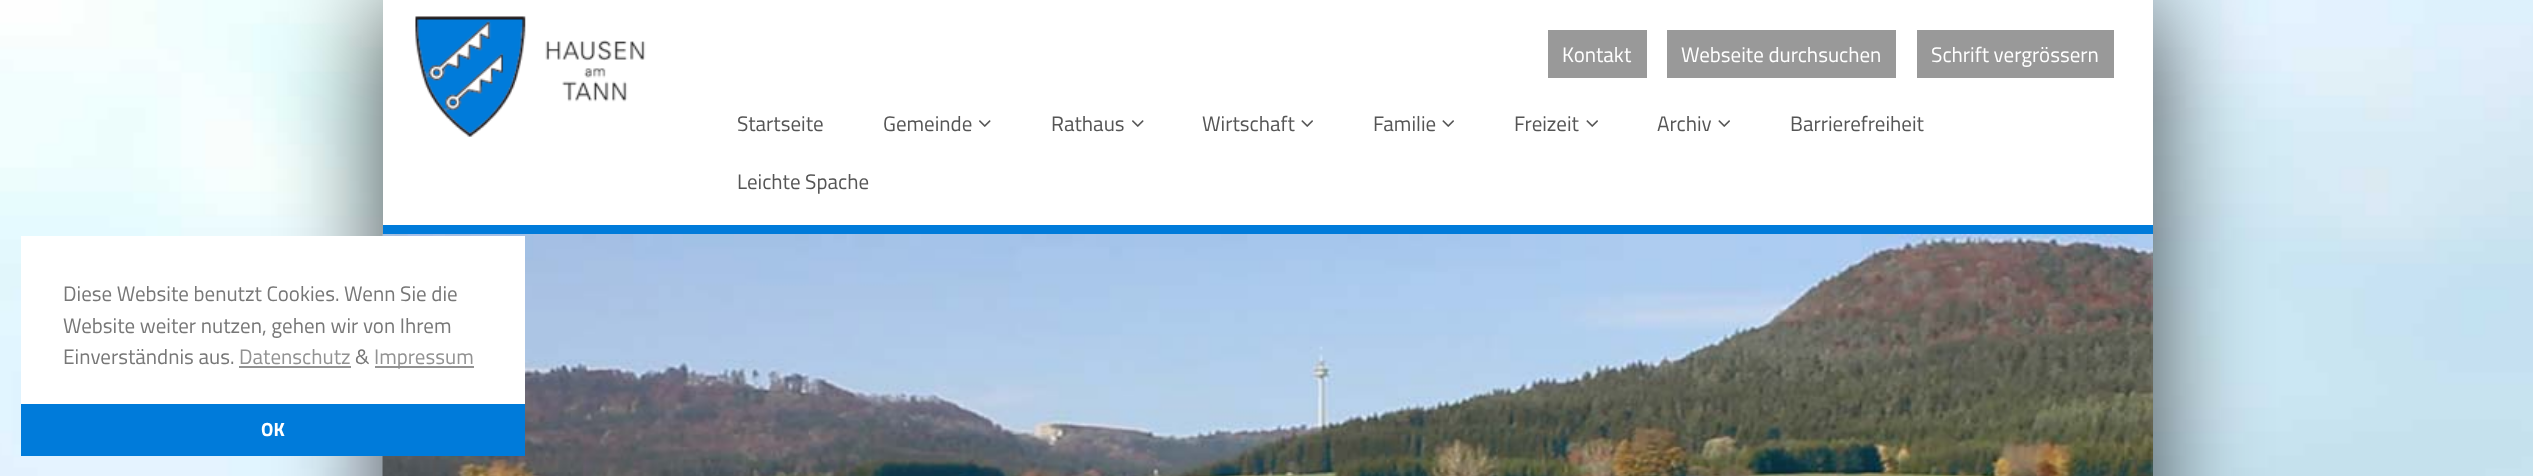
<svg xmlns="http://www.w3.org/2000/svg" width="2533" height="476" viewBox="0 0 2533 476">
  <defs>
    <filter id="blur1" x="-50%" y="-200%" width="200%" height="500%"><feGaussianBlur stdDeviation="52.5"/></filter>
  </defs>
  <rect width="100%" height="100%" fill="#ffffff"/>
  <image x="0" y="0" width="2533" height="476" href="img1.png"/>
  <rect x="383" y="0" width="1770" height="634" fill="#000000" fill-opacity="0.7" filter="url(#blur1)"/>
  <rect x="383" y="0" width="1770" height="476" fill="#ffffff"/>
  <rect x="383" y="225" width="1770" height="9" fill="#007bda"/>
  <image x="415" y="16" width="231" height="121" href="img2.png"/>
  <rect x="1548" y="30" width="99" height="48" fill="#999999"/>
  <text x="1562" y="62" font-family="Titillium Web" font-size="21" fill="#ffffff">Kontakt</text>
  <rect x="1667" y="30" width="229" height="48" fill="#999999"/>
  <text x="1681" y="62" font-family="Titillium Web" font-size="21" fill="#ffffff">Webseite durchsuchen</text>
  <rect x="1917" y="30" width="197" height="48" fill="#999999"/>
  <text x="1931" y="62" font-family="Titillium Web" font-size="21" fill="#ffffff">Schrift vergrössern</text>
  <text x="737" y="131" font-family="Titillium Web" font-size="21" fill="#555555">Startseite</text>
  <text x="883" y="131" font-family="Titillium Web" font-size="21" fill="#555555">Gemeinde</text>
  <image x="979" y="120" width="12" height="7" href="img3.png"/>
  <text x="1051" y="131" font-family="Titillium Web" font-size="21" fill="#555555">Rathaus</text>
  <image x="1132" y="120" width="12" height="7" href="img3.png"/>
  <text x="1202" y="131" font-family="Titillium Web" font-size="21" fill="#555555">Wirtschaft</text>
  <image x="1301" y="120" width="12" height="7" href="img4.png"/>
  <text x="1373" y="131" font-family="Titillium Web" font-size="21" fill="#555555">Familie</text>
  <image x="1442" y="120" width="12" height="7" href="img4.png"/>
  <text x="1514" y="131" font-family="Titillium Web" font-size="21" fill="#555555">Freizeit</text>
  <image x="1586" y="120" width="12" height="7" href="img4.png"/>
  <text x="1657" y="131" font-family="Titillium Web" font-size="21" fill="#555555">Archiv</text>
  <image x="1718" y="120" width="12" height="7" href="img4.png"/>
  <text x="1790" y="131" font-family="Titillium Web" font-size="21" fill="#555555">Barrierefreiheit</text>
  <text x="737" y="189" font-family="Titillium Web" font-size="21" fill="#555555">Leichte Spache</text>
  <image x="382" y="234" width="1771" height="242" href="img5.png"/>
  <image x="2151" y="254" width="2" height="111" href="img6.png"/>
  <rect x="21" y="236" width="504" height="168" fill="#ffffff"/>
  <text x="63" y="301" font-family="Titillium Web" font-size="21" fill="#777777">Diese Website benutzt Cookies. Wenn Sie die</text>
  <text x="63" y="333" font-family="Titillium Web" font-size="21" fill="#777777">Website weiter nutzen, gehen wir von Ihrem</text>
  <text x="63" y="364" font-family="Titillium Web" font-size="21" fill="#777777">Einverständnis aus.</text>
  <text x="239" y="364" font-family="Titillium Web" font-size="21" fill="#929292">Datenschutz</text>
  <rect x="239" y="366" width="112" height="2" fill="#929292"/>
  <text x="355" y="364" font-family="Titillium Web" font-size="21" fill="#777777">&amp;</text>
  <rect x="375" y="366" width="99" height="2" fill="#929292"/>
  <text x="374" y="364" font-family="Titillium Web" font-size="21" fill="#929292">Impressum</text>
  <rect x="21" y="404" width="504" height="52" fill="#007bda"/>
  <text x="261" y="436" font-family="Titillium Web" font-size="19" font-weight="bold" fill="#ffffff">OK</text>
</svg>
